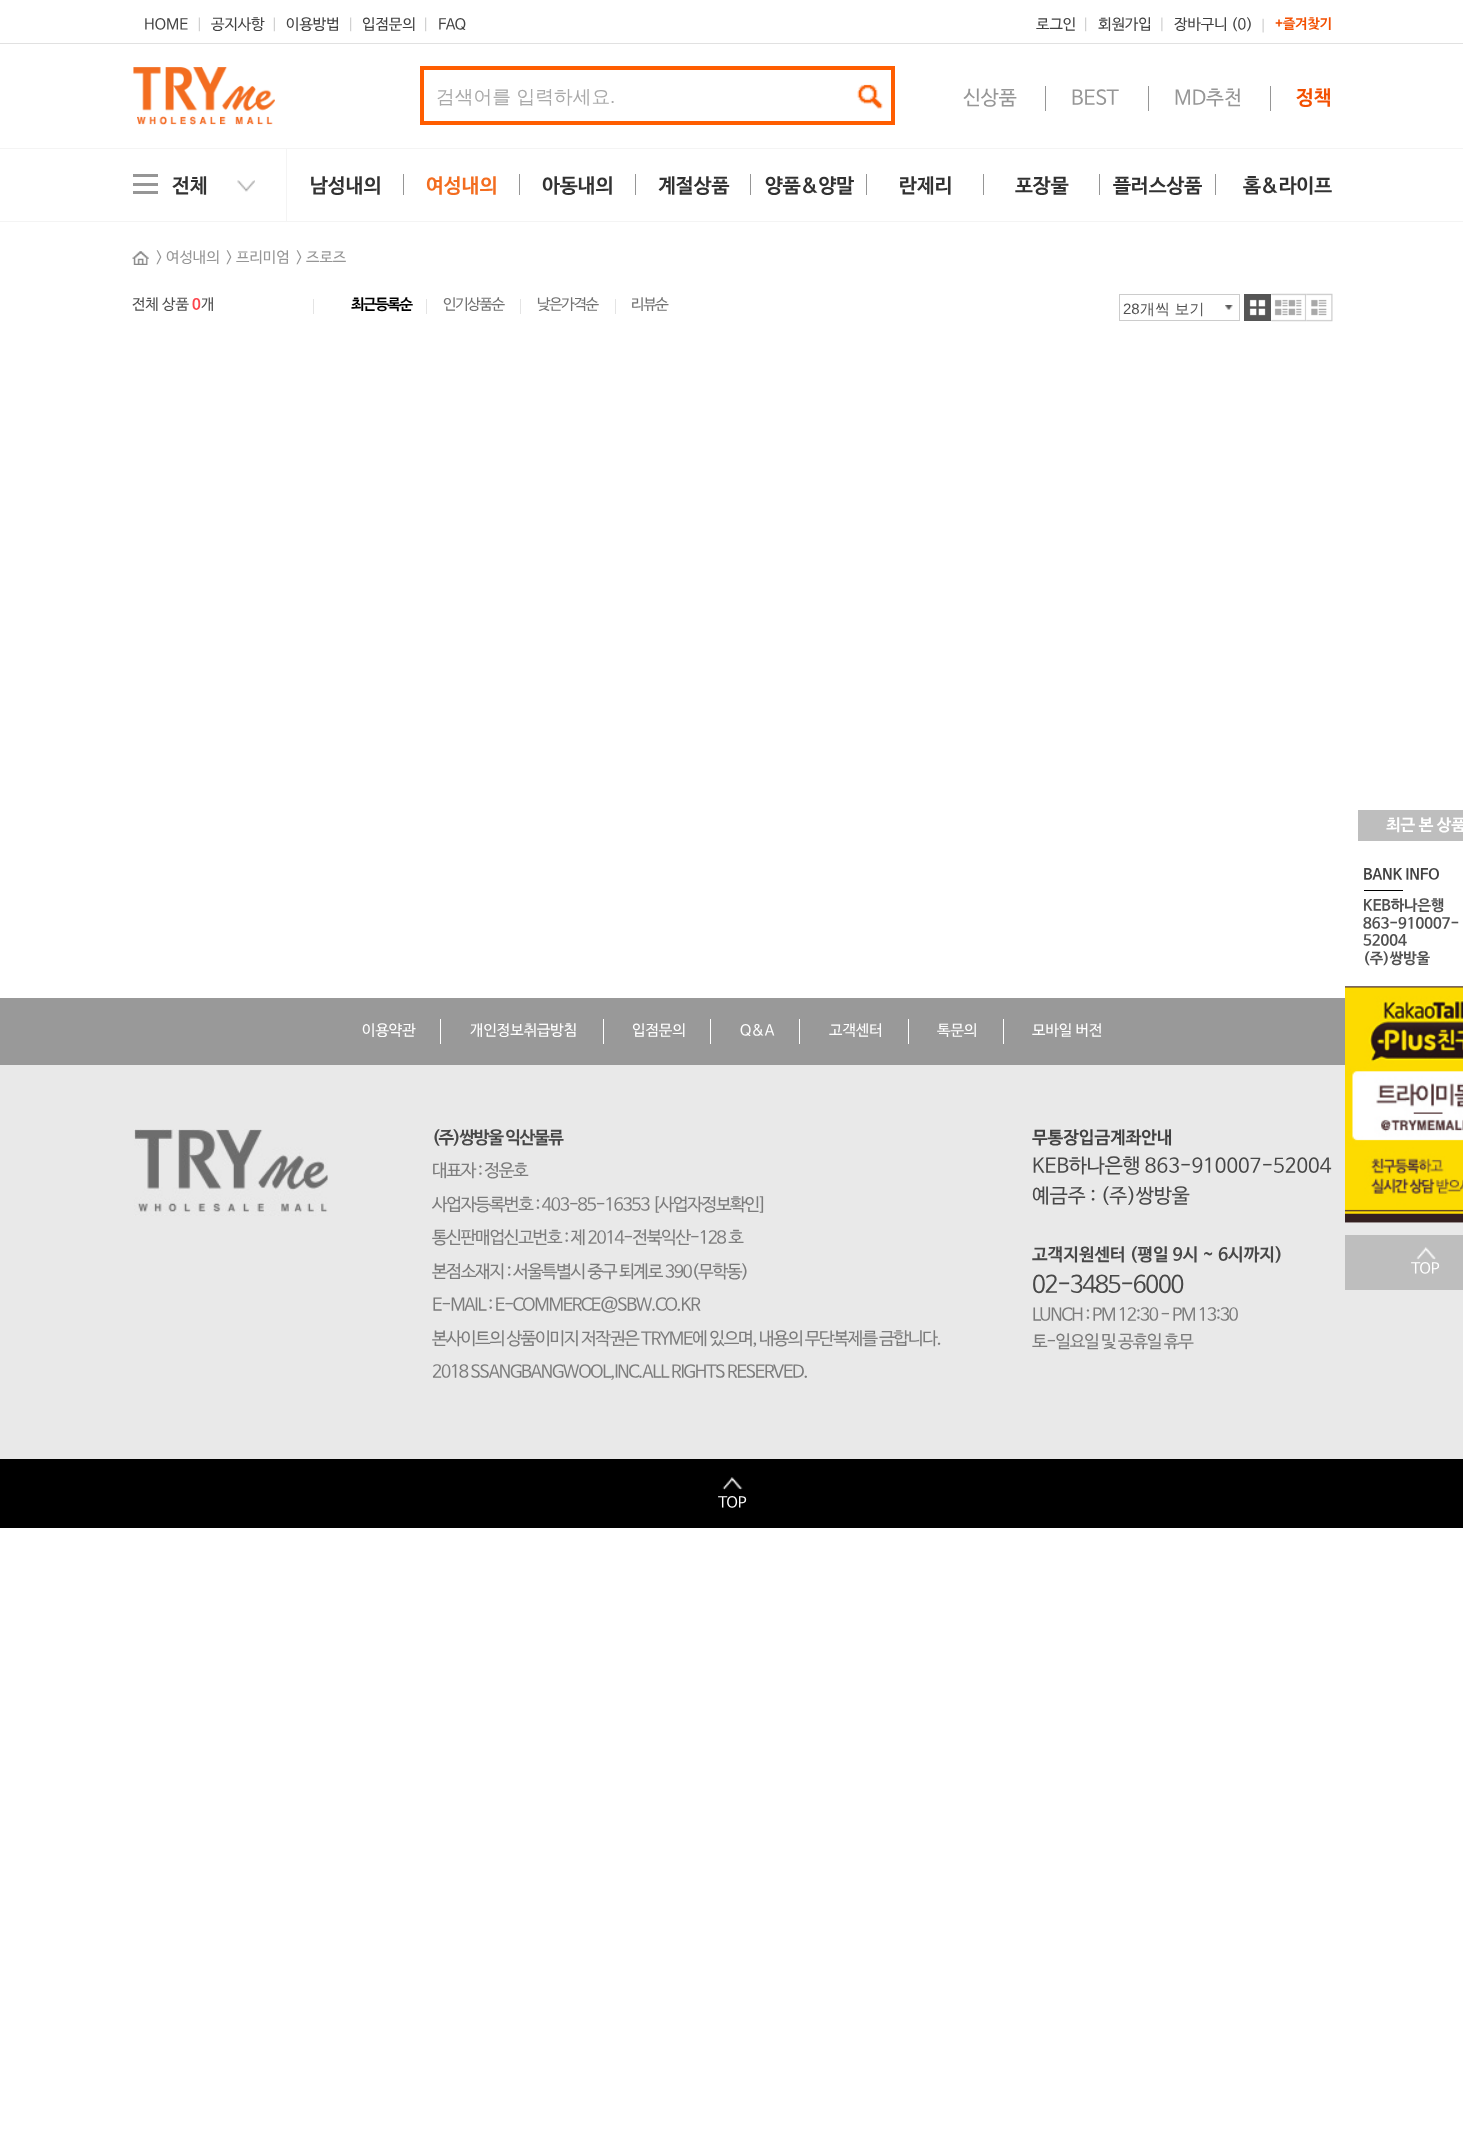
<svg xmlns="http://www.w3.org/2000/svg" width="1463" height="2139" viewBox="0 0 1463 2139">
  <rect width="100%" height="100%" fill="#ffffff"/>
  <rect x="0" y="43" width="1463" height="1" fill="#e1e1e1"/>
  <text x="144" y="29" font-family="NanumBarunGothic" font-size="15" fill="#424242">HOME</text>
  <image x="198" y="17" width="2" height="15" href="img1.png"/>
  <text x="211" y="29" font-family="NanumBarunGothic" font-size="15" fill="#424242">공지사항</text>
  <image x="273" y="17" width="2" height="15" href="img1.png"/>
  <text x="286" y="29" font-family="NanumBarunGothic" font-size="15" fill="#424242">이용방법</text>
  <image x="350" y="17" width="2" height="15" href="img2.png"/>
  <text x="362" y="29" font-family="NanumBarunGothic" font-size="15" fill="#424242">입점문의</text>
  <image x="425" y="17" width="2" height="15" href="img2.png"/>
  <text x="438" y="29" font-family="NanumBarunGothic" font-size="15" fill="#424242">FAQ</text>
  <text x="1036" y="29" font-family="NanumBarunGothic" font-size="15" fill="#424242">로그인</text>
  <image x="1085" y="17" width="2" height="15" href="img2.png"/>
  <text x="1098" y="29" font-family="NanumBarunGothic" font-size="15" fill="#424242">회원가입</text>
  <image x="1161" y="17" width="2" height="15" href="img3.png"/>
  <text x="1174" y="29" font-family="NanumBarunGothic" font-size="15" fill="#424242">장바구니 (0)</text>
  <image x="1262" y="18" width="2" height="15" href="img4.png"/>
  <text x="1275" y="28" font-family="NanumBarunGothic" font-size="13.75" font-weight="bold" fill="#f34f00">+즐겨찾기</text>
  <image x="133" y="67" width="142" height="58" href="img5.png"/>
  <rect x="422" y="68" width="471" height="55" fill="none" stroke="#ff5d00" stroke-width="4"/>
  <text x="436" y="103" font-family="WenQuanYi Zen Hei" font-size="18.75" font-weight="500" fill="#aaaaaa">검색어를 입력하세요</text>
  <text x="610" y="103" font-family="Liberation Sans" font-size="18.75" fill="#aaaaaa">.</text>
  <image x="857" y="84" width="26" height="25" href="img6.png"/>
  <text x="963" y="104" font-family="NanumBarunGothic" font-size="20" fill="#969696">신상품</text>
  <rect x="1045" y="86" width="1" height="25" fill="#969696"/>
  <text x="1071" y="104" font-family="NanumBarunGothic" font-size="20" fill="#969696">BEST</text>
  <rect x="1148" y="86" width="1" height="25" fill="#969696"/>
  <text x="1174" y="104" font-family="NanumBarunGothic" font-size="20" fill="#969696">MD추천</text>
  <rect x="1270" y="86" width="1" height="25" fill="#969696"/>
  <text x="1296" y="104" font-family="NanumBarunGothic" font-size="20" font-weight="bold" fill="#f34f00">정책</text>
  <rect x="0" y="148" width="1463" height="1" fill="#f4f4f4"/>
  <rect x="0" y="221" width="1463" height="1" fill="#f4f4f4"/>
  <rect x="286" y="149" width="1" height="72" fill="#f4f4f4"/>
  <rect x="133" y="174" width="25" height="3" fill="#969696"/>
  <rect x="133" y="183" width="25" height="3" fill="#969696"/>
  <rect x="133" y="191" width="25" height="3" fill="#969696"/>
  <text x="172" y="192" font-family="NanumBarunGothic" font-size="20" font-weight="bold" fill="#323232">전체</text>
  <image x="237" y="180" width="18" height="12" href="img7.png"/>
  <text x="310" y="192" font-family="NanumBarunGothic" font-size="20" font-weight="bold" fill="#323232">남성내의</text>
  <rect x="403" y="174" width="1" height="21" fill="#969696"/>
  <text x="426" y="192" font-family="NanumBarunGothic" font-size="20" font-weight="bold" fill="#f36d20">여성내의</text>
  <rect x="519" y="174" width="1" height="21" fill="#969696"/>
  <text x="542" y="192" font-family="NanumBarunGothic" font-size="20" font-weight="bold" fill="#323232">아동내의</text>
  <rect x="635" y="174" width="1" height="21" fill="#969696"/>
  <text x="658" y="192" font-family="NanumBarunGothic" font-size="20" font-weight="bold" fill="#323232">계절상품</text>
  <rect x="750" y="174" width="1" height="21" fill="#969696"/>
  <text x="765" y="192" font-family="NanumBarunGothic" font-size="20" font-weight="bold" fill="#323232">양품&amp;양말</text>
  <rect x="866" y="174" width="1" height="21" fill="#969696"/>
  <text x="899" y="192" font-family="NanumBarunGothic" font-size="20" font-weight="bold" fill="#323232">란제리</text>
  <rect x="983" y="174" width="1" height="21" fill="#969696"/>
  <text x="1015" y="192" font-family="NanumBarunGothic" font-size="20" font-weight="bold" fill="#323232">포장물</text>
  <rect x="1099" y="174" width="1" height="21" fill="#969696"/>
  <text x="1113" y="192" font-family="NanumBarunGothic" font-size="20" font-weight="bold" fill="#323232">플러스상품</text>
  <rect x="1215" y="174" width="1" height="21" fill="#969696"/>
  <text x="1243" y="192" font-family="NanumBarunGothic" font-size="20" font-weight="bold" fill="#323232">홈&amp;라이프</text>
  <image x="132" y="251" width="17" height="14" href="img8.png"/>
  <text x="156" y="262" font-family="NanumBarunGothic" font-size="15" fill="#969696">&gt; 여성내의</text>
  <text x="226" y="262" font-family="NanumBarunGothic" font-size="15" fill="#969696">&gt; 프리미엄</text>
  <text x="296" y="262" font-family="NanumBarunGothic" font-size="15" fill="#969696">&gt; 즈로즈</text>
  <text x="132" y="309" font-family="NanumBarunGothic" font-size="15" fill="#505050">전체 상품</text>
  <text x="192" y="309" font-family="NanumBarunGothic" font-size="15" font-weight="bold" fill="#fd454d">0</text>
  <text x="201" y="309" font-family="NanumBarunGothic" font-size="15" fill="#505050">개</text>
  <rect x="313" y="299" width="1" height="15" fill="#e4e4e4"/>
  <text x="351" y="309" font-family="NanumBarunGothic" font-size="15" font-weight="bold" letter-spacing="-1.25" fill="#000000">최근등록순</text>
  <rect x="426" y="299" width="1" height="15" fill="#e4e4e4"/>
  <text x="443" y="309" font-family="NanumBarunGothic" font-size="15" letter-spacing="-1.25" fill="#727272">인기상품순</text>
  <rect x="520" y="299" width="1" height="15" fill="#e4e4e4"/>
  <text x="537" y="309" font-family="NanumBarunGothic" font-size="15" letter-spacing="-1.25" fill="#727272">낮은가격순</text>
  <rect x="615" y="299" width="1" height="15" fill="#e4e4e4"/>
  <text x="631" y="309" font-family="NanumBarunGothic" font-size="15" letter-spacing="-1.25" fill="#727272">리뷰순</text>
  <image x="1225" y="305" width="8" height="5" href="img9.png"/>
  <rect x="1119.5" y="294.5" width="120" height="26" fill="none" stroke="#cccccc"/>
  <text x="1123" y="314" font-family="Liberation Sans" font-size="15" fill="#505050">28</text>
  <text x="1140" y="314" font-family="WenQuanYi Zen Hei" font-size="15" font-weight="500" fill="#505050">개씩 보기</text>
  <rect x="1244" y="294" width="27" height="27" fill="#555555"/>
  <image x="1249" y="299" width="17" height="17" href="img10.png"/>
  <image x="1271" y="293" width="36" height="29" href="img11.png"/>
  <image x="1306" y="293" width="27" height="29" href="img12.png"/>
  <rect x="0" y="1065" width="1463" height="394" fill="#e9e9e9"/>
  <rect x="0" y="998" width="1345" height="67" fill="#999999"/>
  <rect x="440" y="1019" width="1" height="25" fill="#ffffff"/>
  <text x="362" y="1035" font-family="NanumBarunGothic" font-size="15" fill="#ffffff">이용약관</text>
  <rect x="603" y="1019" width="1" height="25" fill="#ffffff"/>
  <text x="470" y="1035" font-family="NanumBarunGothic" font-size="15" fill="#ffffff">개인정보취급방침</text>
  <rect x="710" y="1019" width="1" height="25" fill="#ffffff"/>
  <text x="632" y="1035" font-family="NanumBarunGothic" font-size="15" fill="#ffffff">입점문의</text>
  <rect x="799" y="1019" width="1" height="25" fill="#ffffff"/>
  <text x="740" y="1035" font-family="NanumBarunGothic" font-size="15" fill="#ffffff">Q&amp;A</text>
  <rect x="908" y="1019" width="1" height="25" fill="#ffffff"/>
  <text x="829" y="1035" font-family="NanumBarunGothic" font-size="15" fill="#ffffff">고객센터</text>
  <rect x="1003" y="1019" width="1" height="25" fill="#ffffff"/>
  <text x="937" y="1035" font-family="NanumBarunGothic" font-size="15" fill="#ffffff">톡문의</text>
  <text x="1032" y="1035" font-family="NanumBarunGothic" font-size="15" fill="#ffffff">모바일 버전</text>
  <image x="134" y="1129" width="194" height="87" href="img13.png"/>
  <text x="432" y="1143" font-family="NanumBarunGothic" font-size="17.5" font-weight="bold" letter-spacing="-1.25" fill="#484848">(주)쌍방울 익산물류</text>
  <text x="432" y="1176" font-family="NanumBarunGothic" font-size="17.5" letter-spacing="-1.25" fill="#7c7c7c">대표자 : 정운호</text>
  <text x="432" y="1210" font-family="NanumBarunGothic" font-size="17.5" letter-spacing="-1.25" fill="#7c7c7c">사업자등록번호 : 403-85-16353 [사업자정보확인]</text>
  <text x="432" y="1243" font-family="NanumBarunGothic" font-size="17.5" letter-spacing="-1.25" fill="#7c7c7c">통신판매업신고번호 : 제 2014-전북익산-128 호</text>
  <text x="432" y="1277" font-family="NanumBarunGothic" font-size="17.5" letter-spacing="-1.25" fill="#7c7c7c">본점소재지 : 서울특별시 중구 퇴계로 390(무학동)</text>
  <text x="432" y="1310" font-family="NanumBarunGothic" font-size="17.5" letter-spacing="-1.25" fill="#7c7c7c">E-MAIL : E-COMMERCE@SBW.CO.KR</text>
  <text x="432" y="1344" font-family="NanumBarunGothic" font-size="17.5" letter-spacing="-1.25" fill="#7c7c7c">본사이트의 상품이미지 저작권은 TRYME에 있으며, 내용의 무단복제를 금합니다.</text>
  <text x="432" y="1377" font-family="NanumBarunGothic" font-size="17.5" letter-spacing="-1.25" fill="#7c7c7c">2018 SSANGBANGWOOL,INC.ALL RIGHTS RESERVED.</text>
  <text x="1032" y="1143" font-family="NanumBarunGothic" font-size="17.5" font-weight="bold" fill="#424242">무통장입금계좌안내</text>
  <text x="1032" y="1172" font-family="NanumBarunGothic" font-size="20" fill="#484848">KEB하나은행 863-910007-52004</text>
  <text x="1032" y="1202" font-family="NanumBarunGothic" font-size="20" fill="#484848">예금주 : (주)쌍방울</text>
  <text x="1032" y="1260" font-family="NanumBarunGothic" font-size="17.5" font-weight="bold" fill="#484848">고객지원센터 (평일 9시 ~ 6시까지)</text>
  <text x="1032" y="1292" font-family="NanumBarunGothic" font-size="23.75" letter-spacing="-1.25" fill="#484848">02-3485-6000</text>
  <text x="1032" y="1320" font-family="NanumBarunGothic" font-size="17.5" letter-spacing="-1.25" fill="#7c7c7c">LUNCH : PM 12:30 - PM 13:30</text>
  <text x="1032" y="1347" font-family="NanumBarunGothic" font-size="17.5" letter-spacing="-1.25" fill="#7c7c7c">토-일요일 및 공휴일 휴무</text>
  <rect x="0" y="1459" width="1463" height="69" fill="#000000"/>
  <image x="722" y="1477" width="21" height="13" href="img14.png"/>
  <text x="718" y="1507" font-family="NanumBarunGothic" font-size="15" fill="#ffffff">TOP</text>
  <rect x="1345" y="1065" width="118" height="158" fill="#ffffff"/>
  <rect x="1358" y="810" width="105" height="31" fill="#bebebe"/>
  <text x="1386" y="830" font-family="NanumBarunGothic" font-size="16.25" font-weight="bold" fill="#ffffff">최근 본 상품</text>
  <text x="1363" y="879" font-family="NanumBarunGothic" font-size="15" font-weight="bold" fill="#424242">BANK INFO</text>
  <rect x="1364" y="890" width="39" height="1" fill="#000000"/>
  <text x="1363" y="910" font-family="NanumBarunGothic" font-size="15" font-weight="bold" fill="#505050">KEB하나은행</text>
  <text x="1363" y="928" font-family="NanumBarunGothic" font-size="15" font-weight="bold" fill="#505050">863-910007-</text>
  <text x="1363" y="945" font-family="NanumBarunGothic" font-size="15" font-weight="bold" fill="#505050">52004</text>
  <text x="1363" y="963" font-family="NanumBarunGothic" font-size="15" font-weight="bold" fill="#505050">(주)쌍방울</text>
  <image x="1345" y="986" width="118" height="237" href="img15.png"/>
  <rect x="1345" y="1235" width="118" height="55" fill="#bebebe"/>
  <image x="1416" y="1247" width="20" height="13" href="img16.png"/>
  <text x="1411" y="1273" font-family="NanumBarunGothic" font-size="15" fill="#ffffff">TOP</text>
</svg>
